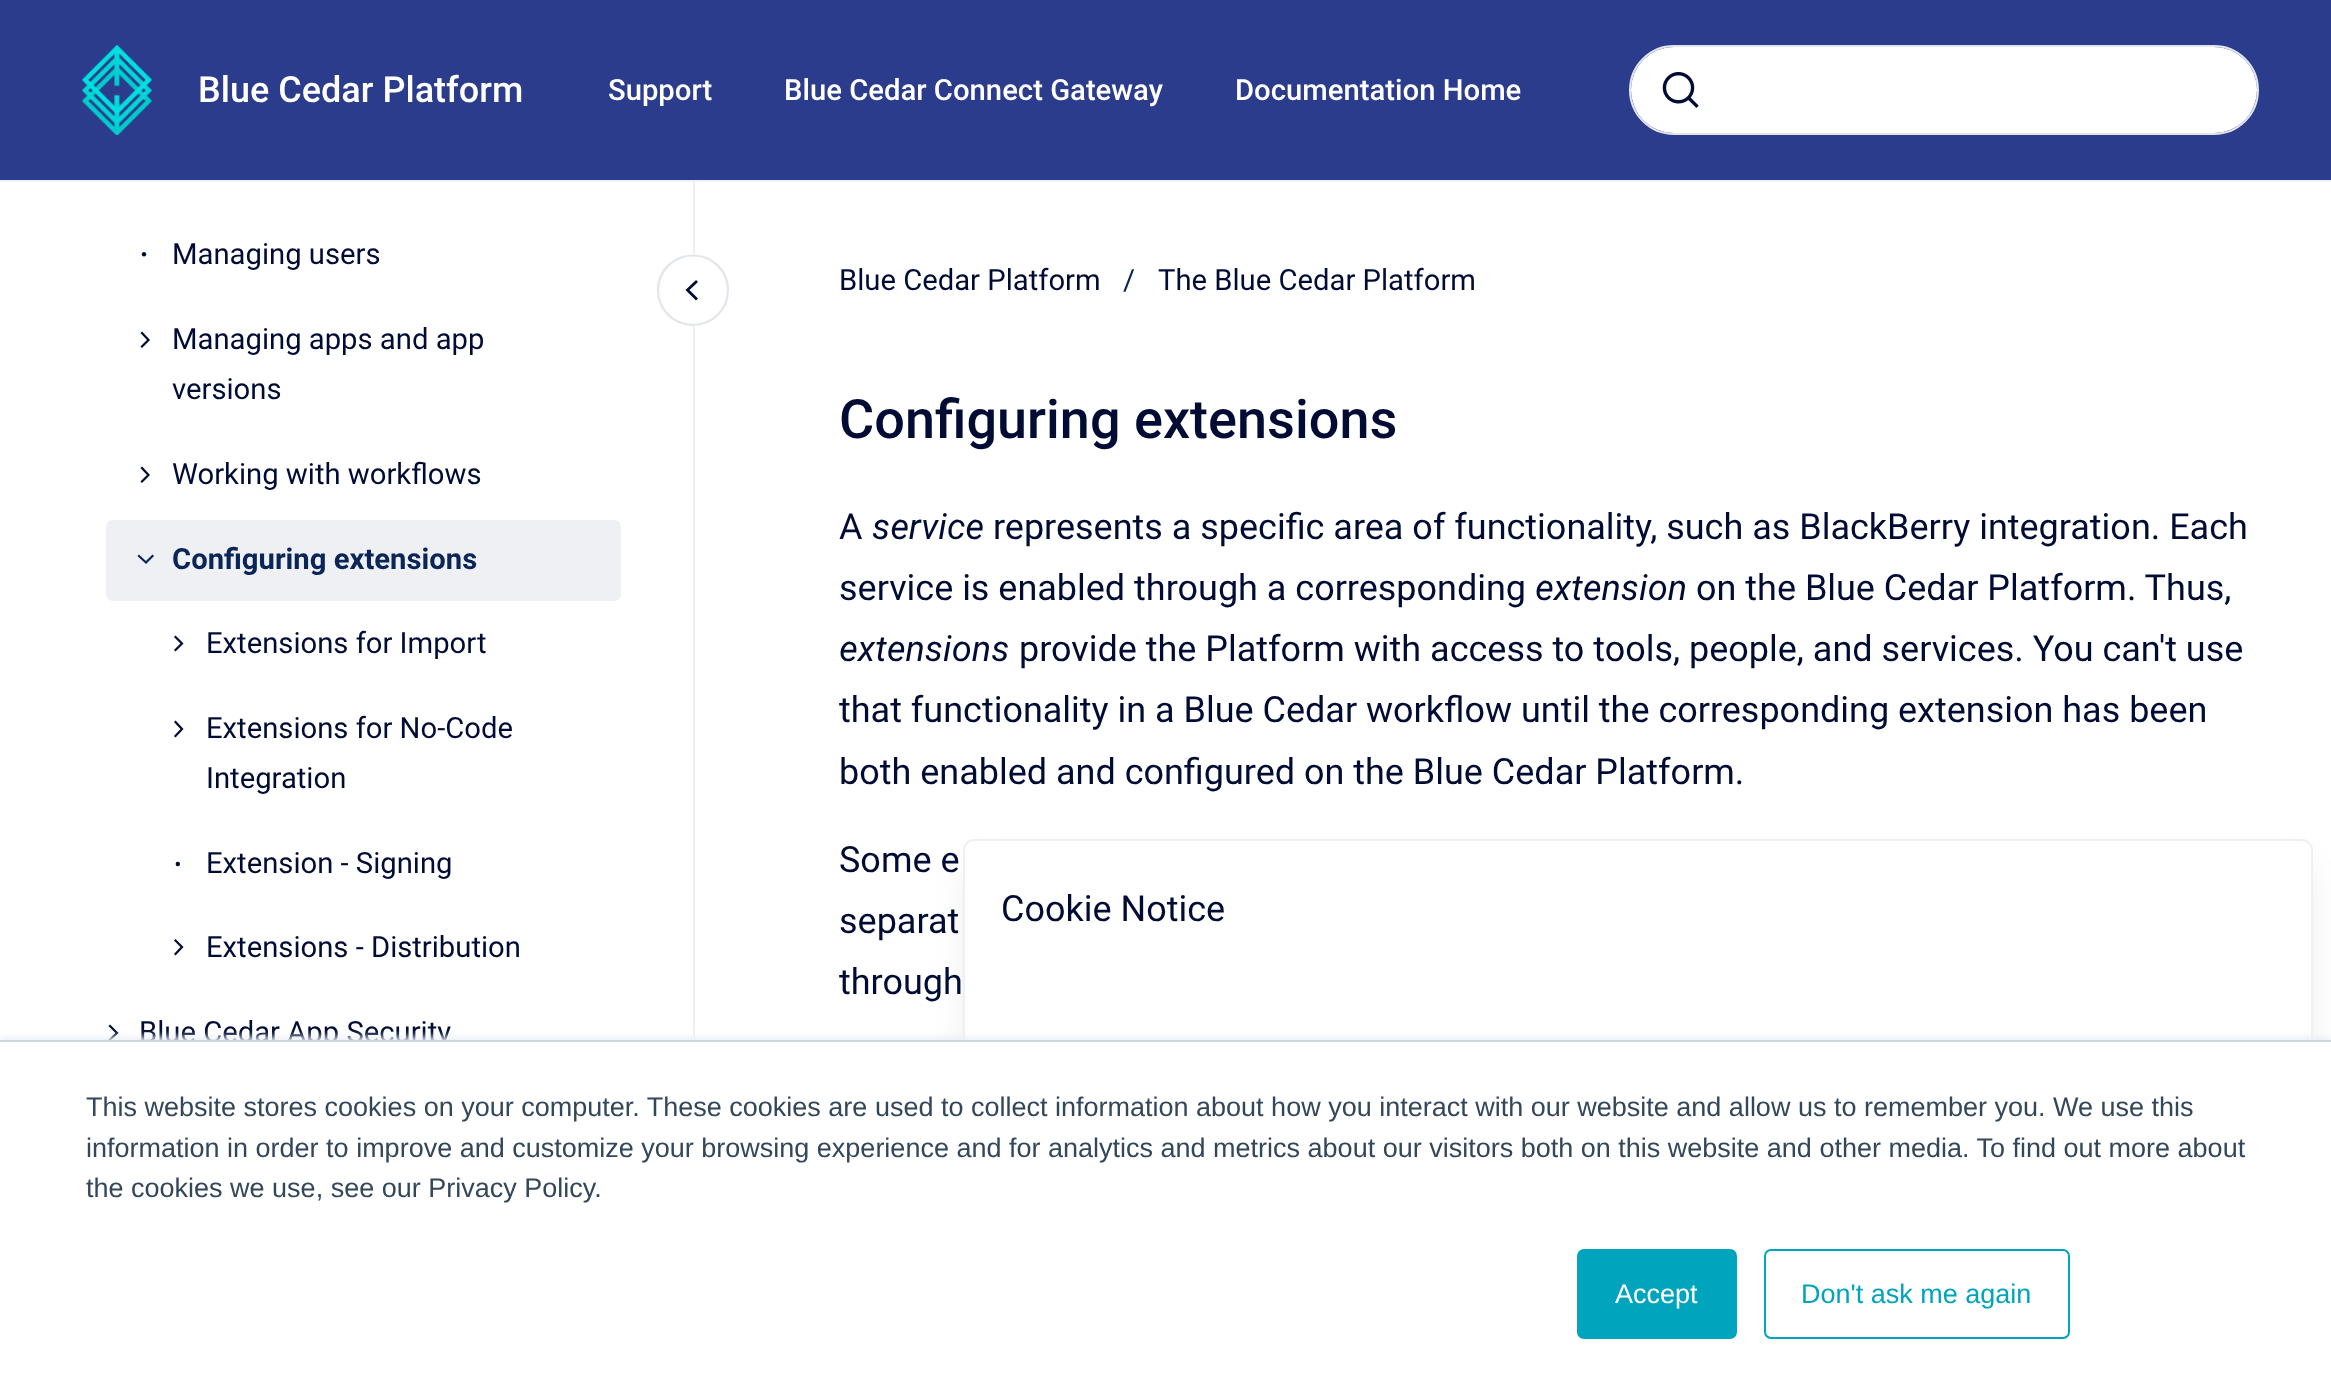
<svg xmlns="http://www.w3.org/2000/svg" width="2331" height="1396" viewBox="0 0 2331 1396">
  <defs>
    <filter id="blur1" x="-50%" y="-200%" width="200%" height="500%"><feGaussianBlur stdDeviation="17"/></filter>
    <filter id="blur2" x="-50%" y="-200%" width="200%" height="500%"><feGaussianBlur stdDeviation="3.5"/></filter>
  </defs>
  <rect width="100%" height="100%" fill="#ffffff"/>
  <rect x="0" y="0" width="2331" height="180" fill="#2c3c8c"/>
  <rect x="0" y="180" width="2331" height="2" fill="#eff0f4"/>
  <image x="82" y="45" width="71" height="90" href="img1.png"/>
  <text x="198" y="102" font-family="Roboto" font-size="36" font-weight="500" fill="#ffffff">Blue Cedar Platform</text>
  <text x="608" y="100" font-family="Roboto" font-size="29.25" font-weight="500" fill="#ffffff">Support</text>
  <text x="784" y="100" font-family="Roboto" font-size="29.25" font-weight="500" fill="#ffffff">Blue Cedar Connect Gateway</text>
  <text x="1235" y="100" font-family="Roboto" font-size="29.25" font-weight="500" fill="#ffffff">Documentation Home</text>
  <rect x="1630" y="46" width="628" height="88" rx="44" fill="none" stroke="#e2e5eb" stroke-width="2"/>
  <rect x="1631" y="47" width="626" height="86" rx="43" fill="#ffffff"/>
  <image x="1662" y="72" width="37" height="36" href="img2.png"/>
  <rect x="693" y="182" width="2" height="858" fill="#eff0f4"/>
  <circle cx="144" cy="254.2" r="2.2" fill="#000c34"/>
  <text x="172" y="264" font-family="Roboto" font-size="29.25" fill="#000c34">Managing users</text>
  <path d="M142 333L148.5 340L142 346.5" fill="none" stroke="#000c34" stroke-width="2.2" stroke-linecap="square"/>
  <text x="172" y="349" font-family="Roboto" font-size="29.25" fill="#000c34">Managing apps and app</text>
  <text x="172" y="399" font-family="Roboto" font-size="29.25" fill="#000c34">versions</text>
  <path d="M142 468L148.5 475L142 481.5" fill="none" stroke="#000c34" stroke-width="2.2" stroke-linecap="square"/>
  <text x="172" y="484" font-family="Roboto" font-size="29.25" fill="#000c34">Working with workflows</text>
  <rect x="106" y="520" width="515" height="81" rx="7" fill="#eff0f4"/>
  <path d="M152.5 556L146 562.5L139 556" fill="none" stroke="#0a2656" stroke-width="2.2" stroke-linecap="square"/>
  <text x="172" y="569" font-family="Roboto" font-size="29.25" font-weight="bold" fill="#0a2656">Configuring extensions</text>
  <path d="M175.5 637L182 643.5L175.5 650" fill="none" stroke="#000c34" stroke-width="2.2" stroke-linecap="square"/>
  <text x="206" y="653" font-family="Roboto" font-size="29.25" fill="#000c34">Extensions for Import</text>
  <path d="M175.5 722L182 729L175.5 736" fill="none" stroke="#000c34" stroke-width="2.2" stroke-linecap="square"/>
  <text x="206" y="738" font-family="Roboto" font-size="29.25" fill="#000c34">Extensions for No-Code</text>
  <text x="206" y="788" font-family="Roboto" font-size="29.25" fill="#000c34">Integration</text>
  <circle cx="177.8" cy="864" r="2.2" fill="#000c34"/>
  <text x="206" y="873" font-family="Roboto" font-size="29.25" fill="#000c34">Extension - Signing</text>
  <path d="M175.5 940.5L182 947L175.5 954" fill="none" stroke="#000c34" stroke-width="2.2" stroke-linecap="square"/>
  <text x="206" y="957" font-family="Roboto" font-size="29.25" fill="#000c34">Extensions - Distribution</text>
  <path d="M110 1026L117 1033L110 1039.5" fill="none" stroke="#000c34" stroke-width="2.2" stroke-linecap="square"/>
  <text x="139" y="1042" font-family="Roboto" font-size="29.25" fill="#000c34">Blue Cedar App Security</text>
  <path d="M693 326C673 326 657 310 657 290C657 270 673 254 693 254C713 254 729 270 729 290C729 310 713 326 693 326Z" fill="#ffffff"/>
  <path d="M693 325C673.5 325 658 309.5 658 290C658 271 673.5 255.5 693 255.5C712.5 255.5 728 271 728 290C728 309.5 712.5 325 693 325Z" fill="none" stroke="#e2e5eb" stroke-width="2.2"/>
  <path d="M696 298.5L687.5 290L696 282" fill="none" stroke="#000c34" stroke-width="2.8" stroke-linecap="square"/>
  <text x="839" y="290" font-family="Roboto" font-size="29.25" fill="#000c34">Blue Cedar Platform</text>
  <text x="1123" y="290" font-family="Roboto" font-size="29.25" fill="#0a2656">/</text>
  <text x="1158" y="290" font-family="Roboto" font-size="29.25" fill="#000c34">The Blue Cedar Platform</text>
  <text x="839" y="438" font-family="Roboto" font-size="54" font-weight="500" fill="#000c34">Configuring extensions</text>
  <text x="839" y="539" font-family="Roboto" font-size="36" fill="#000c34">A</text>
  <text x="872" y="539" font-family="Roboto" font-size="36" font-style="italic" fill="#000c34">service</text>
  <text x="993" y="539" font-family="Roboto" font-size="36" fill="#000c34">represents a specific area of functionality, such as BlackBerry integration. Each</text>
  <text x="839" y="600" font-family="Roboto" font-size="36" fill="#000c34">service is enabled through a corresponding</text>
  <text x="1535" y="600" font-family="Roboto" font-size="36" font-style="italic" fill="#000c34">extension</text>
  <text x="1696" y="600" font-family="Roboto" font-size="36" fill="#000c34">on the Blue Cedar Platform. Thus,</text>
  <text x="839" y="661" font-family="Roboto" font-size="36" font-style="italic" fill="#000c34">extensions</text>
  <text x="1019" y="661" font-family="Roboto" font-size="36" fill="#000c34">provide the Platform with access to tools, people, and services. You can't use</text>
  <text x="839" y="722" font-family="Roboto" font-size="36" fill="#000c34">that functionality in a Blue Cedar workflow until the corresponding extension has been</text>
  <text x="839" y="784" font-family="Roboto" font-size="36" fill="#000c34">both enabled and configured on the Blue Cedar Platform.</text>
  <text x="839" y="872" font-family="Roboto" font-size="36" fill="#000c34">Some e</text>
  <text x="839" y="933" font-family="Roboto" font-size="36" fill="#000c34">separat</text>
  <text x="839" y="994" font-family="Roboto" font-size="36" fill="#000c34">through</text>
  <rect x="970" y="869" width="1336" height="526" rx="5" fill="#000000" fill-opacity="0.1" filter="url(#blur1)"/>
  <rect x="964" y="840" width="1348" height="538" rx="10" fill="#ffffff" stroke="#eff0f4" stroke-width="2"/>
  <text x="1001" y="921" font-family="Roboto" font-size="36" fill="#000c34">Cookie Notice</text>
  <rect x="0" y="1037" width="2331" height="358" fill="#eaf0f6" filter="url(#blur2)"/>
  <rect x="0" y="1042" width="2331" height="354" fill="#ffffff"/>
  <rect x="0" y="1040" width="2331" height="2" fill="#cbd6e2"/>
  <text x="86" y="1116" font-family="Liberation Sans" font-size="27" fill="#33475b">This website stores cookies on your computer. These cookies are used to collect information about how you interact with our website and allow us to remember you. We use this</text>
  <text x="86" y="1157" font-family="Liberation Sans" font-size="27" fill="#33475b">information in order to improve and customize your browsing experience and for analytics and metrics about our visitors both on this website and other media. To find out more about</text>
  <text x="86" y="1197" font-family="Liberation Sans" font-size="27" fill="#33475b">the cookies we use, see our Privacy Policy.</text>
  <rect x="1578" y="1250" width="158" height="88" rx="6" fill="#00a4bd" stroke="#00a4bd" stroke-width="2"/>
  <text x="1615" y="1303" font-family="Liberation Sans" font-size="27" fill="#ffffff">Accept</text>
  <rect x="1765" y="1250" width="304" height="88" rx="6" fill="none" stroke="#00a4bd" stroke-width="2"/>
  <text x="1801" y="1303" font-family="Liberation Sans" font-size="27" fill="#00a4bd">Don't ask me again</text>
</svg>
